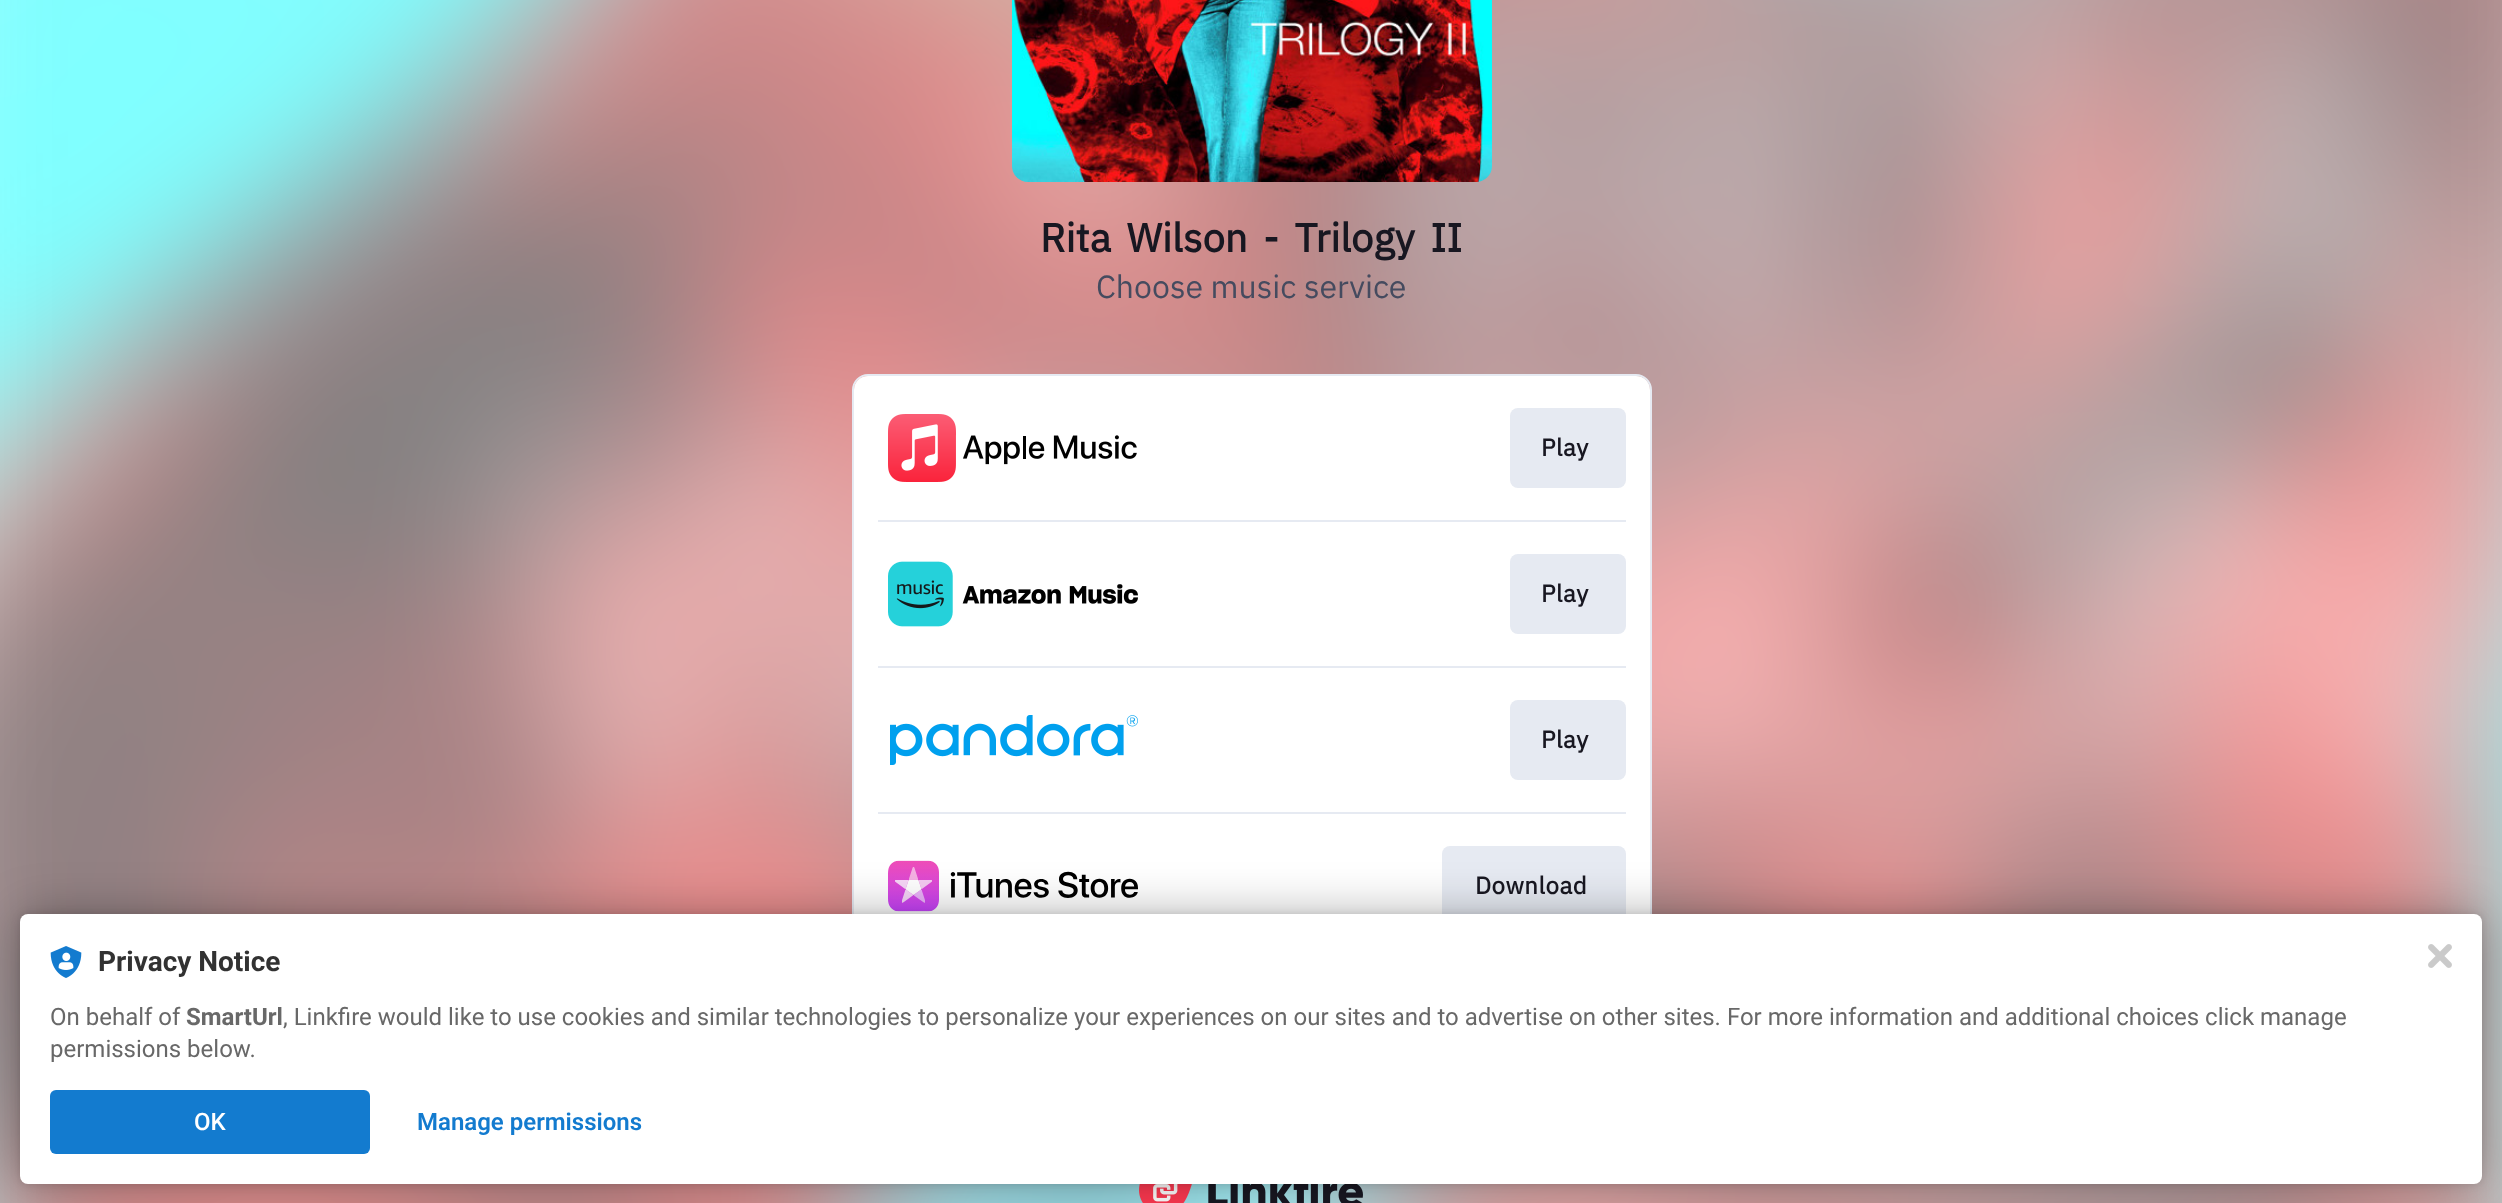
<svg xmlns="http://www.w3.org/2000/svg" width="2502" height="1203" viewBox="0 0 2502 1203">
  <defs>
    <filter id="blur1" x="-50%" y="-200%" width="200%" height="500%"><feGaussianBlur stdDeviation="4"/></filter>
    <filter id="blur2" x="-50%" y="-200%" width="200%" height="500%"><feGaussianBlur stdDeviation="24"/></filter>
  </defs>
  <rect width="100%" height="100%" fill="#ffffff"/>
  <image x="0" y="0" width="2502" height="1203" href="img1.png"/>
  <image x="1012" y="0" width="480" height="182" href="img2.png"/>
  <text x="1040" y="252" word-spacing="6" font-family="IBM Plex Sans" font-size="40" font-weight="bold" fill="#181721">Rita Wilson - Trilogy II</text>
  <text x="1096" y="298" font-family="IBM Plex Sans" font-size="32" fill="#454b5f">Choose music service</text>
  <rect x="853" y="375" width="798" height="584" rx="15" fill="none" stroke="#e6eaf2" stroke-width="2"/>
  <rect x="854" y="376" width="796" height="582" rx="14" fill="#ffffff"/>
  <image x="888" y="414" width="249" height="68" href="img3.png"/>
  <rect x="1510" y="408" width="116" height="80" rx="8" fill="#e6eaf2"/>
  <text x="1541" y="456" font-family="IBM Plex Sans" font-size="24" font-weight="bold" letter-spacing="0.5" fill="#181721">Play</text>
  <rect x="878" y="520" width="748" height="2" fill="#e6eaf2"/>
  <image x="888" y="561" width="250" height="66" href="img4.png"/>
  <rect x="1510" y="554" width="116" height="80" rx="8" fill="#e6eaf2"/>
  <text x="1541" y="602" font-family="IBM Plex Sans" font-size="24" font-weight="bold" letter-spacing="0.5" fill="#181721">Play</text>
  <rect x="878" y="666" width="748" height="2" fill="#e6eaf2"/>
  <image x="890" y="715" width="248" height="50" href="img5.png"/>
  <rect x="1510" y="700" width="116" height="80" rx="8" fill="#e6eaf2"/>
  <text x="1541" y="748" font-family="IBM Plex Sans" font-size="24" font-weight="bold" letter-spacing="0.5" fill="#181721">Play</text>
  <rect x="878" y="812" width="748" height="2" fill="#e6eaf2"/>
  <image x="888" y="860" width="250" height="52" href="img6.png"/>
  <rect x="1442" y="846" width="184" height="80" rx="8" fill="#e6eaf2"/>
  <text x="1475" y="894" font-family="IBM Plex Sans" font-size="24" font-weight="bold" letter-spacing="0.5" fill="#181721">Download</text>
  <image x="1139" y="1184" width="224" height="19" href="img7.png"/>
  <rect x="20" y="914" width="2462" height="270" rx="8" fill="#000000" fill-opacity="0.12" filter="url(#blur1)"/>
  <rect x="20" y="914" width="2462" height="270" rx="8" fill="#000000" fill-opacity="0.3" filter="url(#blur2)"/>
  <rect x="20" y="914" width="2462" height="270" rx="8" fill="#ffffff"/>
  <image x="50" y="946" width="32" height="32" href="img8.png"/>
  <text x="98" y="971" font-family="Roboto" font-size="28" font-weight="bold" fill="#323232">Privacy Notice</text>
  <text x="50" y="1025" font-family="Roboto" font-size="24" fill="#686868">On behalf of</text>
  <text x="186" y="1025" font-family="Roboto" font-size="24" font-weight="bold" fill="#686868">SmartUrl</text>
  <text x="283" y="1025" font-family="Roboto" font-size="24" fill="#686868">, Linkfire would like to use cookies and similar technologies to personalize your experiences on our sites and to advertise on other sites. For more information and additional choices click manage</text>
  <text x="50" y="1057" font-family="Roboto" font-size="24" fill="#686868">permissions below.</text>
  <rect x="50" y="1090" width="320" height="64" rx="6" fill="#137bcf"/>
  <text x="194" y="1130" font-family="Roboto" font-size="24" font-weight="500" fill="#ffffff">OK</text>
  <text x="417" y="1130" font-family="Roboto" font-size="24" font-weight="600" fill="#137bcf">Manage permissions</text>
  <image x="2428" y="944" width="24" height="24" href="img9.png"/>
</svg>
